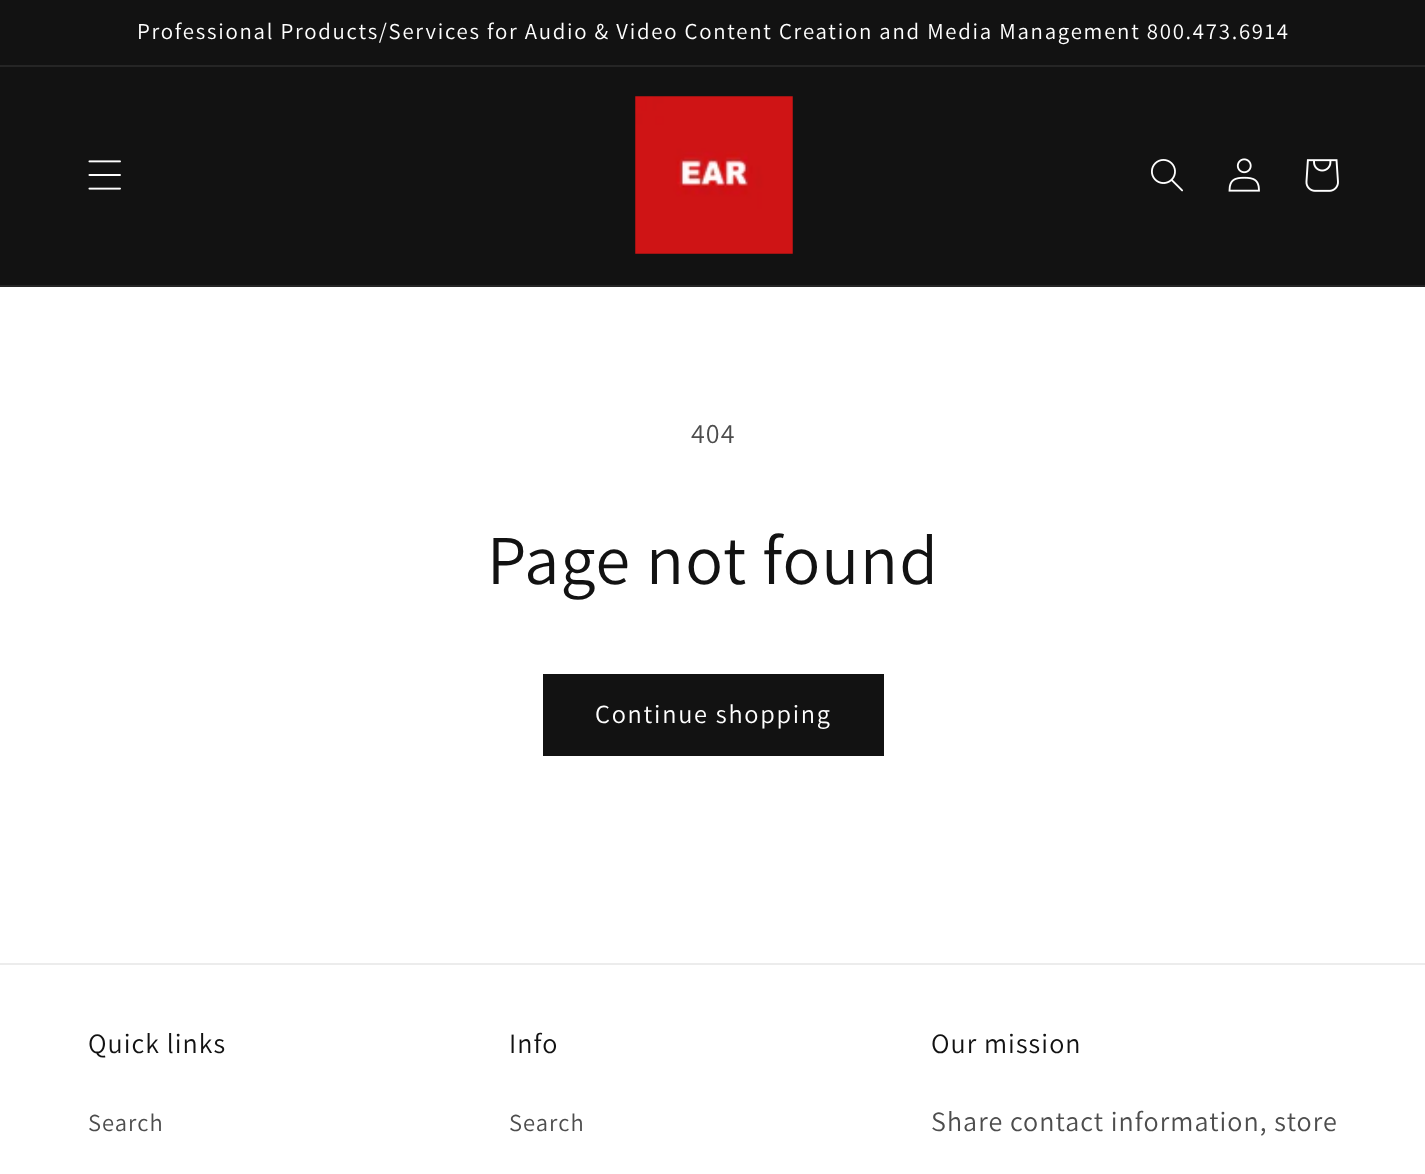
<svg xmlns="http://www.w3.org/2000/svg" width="1425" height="1174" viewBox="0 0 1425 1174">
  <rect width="100%" height="100%" fill="#ffffff"/>
  <rect x="0" y="0" width="1425" height="65" fill="#121212"/>
  <rect x="0" y="65" width="1425" height="2" fill="#252525"/>
  <text x="137" y="39" font-family="Assistant" font-size="22.75" letter-spacing="1.75" fill="#ffffff">Professional Products/Services for Audio &amp; Video Content Creation and Media Management 800.473.6914</text>
  <rect x="0" y="67" width="1425" height="218" fill="#121212"/>
  <rect x="0" y="285" width="1425" height="2" fill="#252525"/>
  <image x="88" y="160" width="33" height="30" href="img1.png"/>
  <image x="635" y="96" width="158" height="158" href="img2.png"/>
  <image x="1151" y="159" width="32" height="33" href="img3.png"/>
  <image x="1228" y="158" width="32" height="34" href="img4.png"/>
  <image x="1305" y="159" width="34" height="33" href="img5.png"/>
  <text x="691" y="443" font-family="Assistant" font-size="28" letter-spacing="1.05" fill="#4d4d4d">404</text>
  <text x="487" y="584" font-family="Assistant" font-size="70" letter-spacing="1.05" fill="#121212">Page not found</text>
  <rect x="543" y="674" width="341" height="82" fill="#121212"/>
  <text x="595" y="723" font-family="Assistant" font-size="26.25" letter-spacing="1.75" fill="#ffffff">Continue shopping</text>
  <rect x="0" y="963" width="1425" height="2" fill="#ececec"/>
  <text x="88" y="1053" font-family="Assistant" font-size="28" letter-spacing="1.05" fill="#121212">Quick links</text>
  <text x="88" y="1131" font-family="Assistant" font-size="24.5" letter-spacing="1.05" fill="#4d4d4d">Search</text>
  <text x="509" y="1053" font-family="Assistant" font-size="28" letter-spacing="1.05" fill="#121212">Info</text>
  <text x="509" y="1131" font-family="Assistant" font-size="24.5" letter-spacing="1.05" fill="#4d4d4d">Search</text>
  <text x="931" y="1053" font-family="Assistant" font-size="28" letter-spacing="1.05" fill="#121212">Our mission</text>
  <text x="931" y="1131" font-family="Assistant" font-size="28" letter-spacing="1.05" fill="#4d4d4d">Share contact information, store</text>
</svg>
